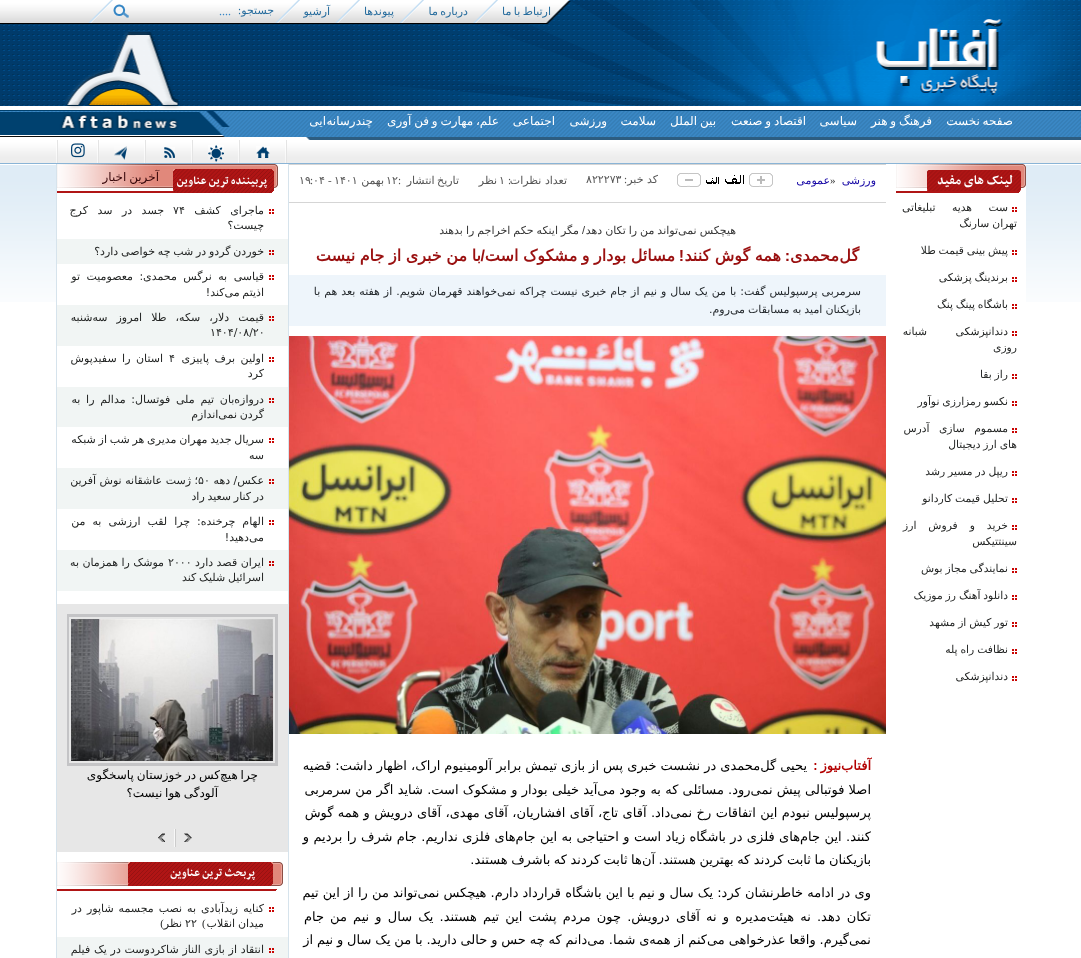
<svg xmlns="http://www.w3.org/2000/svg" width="1081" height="958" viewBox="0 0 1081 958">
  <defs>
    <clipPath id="clip1"><rect x="67" y="614" width="211" height="205"/></clipPath>
  </defs>
  <rect width="100%" height="100%" fill="#ffffff"/>
  <image x="0" y="0" width="1081" height="164" href="img1.png"/>
  <text x="551" y="15" word-spacing="-1" font-family="DejaVu Sans" font-size="11" direction="rtl" fill="#266c9d">ارتباط با ما</text>
  <image x="473" y="0" width="25" height="23" href="img2.png"/>
  <text x="468" y="15" word-spacing="-1" font-family="DejaVu Sans" font-size="11" direction="rtl" fill="#266c9d">درباره ما</text>
  <image x="399" y="0" width="25" height="23" href="img2.png"/>
  <text x="394" y="15" font-family="DejaVu Sans" font-size="11" direction="rtl" fill="#266c9d">پیوندها</text>
  <image x="335" y="0" width="25" height="23" href="img2.png"/>
  <text x="330" y="15" font-family="DejaVu Sans" font-size="11" direction="rtl" fill="#266c9d">آرشیو</text>
  <image x="275" y="0" width="25" height="23" href="img2.png"/>
  <text x="241" y="14" font-family="Liberation Serif" font-size="11" direction="rtl" fill="#266c9d">:</text>
  <text x="274" y="14" font-family="DejaVu Sans" font-size="11" direction="rtl" fill="#266c9d">جستجو</text>
  <text x="219" y="15" font-family="Liberation Serif" font-size="12" fill="#3586c7">....</text>
  <image x="88" y="0" width="41" height="23" href="img3.png"/>
  <text x="1013" y="125" word-spacing="-1" font-family="DejaVu Sans" font-size="12" direction="rtl" fill="#ffffff">صفحه نخست</text>
  <text x="932" y="125" word-spacing="-1" font-family="DejaVu Sans" font-size="12" direction="rtl" fill="#ffffff">فرهنگ و هنر</text>
  <text x="857" y="125" font-family="DejaVu Sans" font-size="12" direction="rtl" fill="#ffffff">سیاسی</text>
  <text x="806" y="125" word-spacing="-1" font-family="DejaVu Sans" font-size="12" direction="rtl" fill="#ffffff">اقتصاد و صنعت</text>
  <text x="716" y="125" word-spacing="-1" font-family="DejaVu Sans" font-size="12" direction="rtl" fill="#ffffff">بین الملل</text>
  <text x="656" y="125" font-family="DejaVu Sans" font-size="12" direction="rtl" fill="#ffffff">سلامت</text>
  <text x="607" y="125" font-family="DejaVu Sans" font-size="12" direction="rtl" fill="#ffffff">ورزشی</text>
  <text x="555" y="125" font-family="DejaVu Sans" font-size="12" direction="rtl" fill="#ffffff">اجتماعی</text>
  <text x="499" y="125" word-spacing="-1" font-family="DejaVu Sans" font-size="12" direction="rtl" fill="#ffffff">علم، مهارت و فن آوری</text>
  <text x="373" y="125" font-family="DejaVu Sans" font-size="12" direction="rtl" fill="#ffffff">چندرسانه</text>
  <text x="326" y="125" font-family="DejaVu Sans" font-size="12" direction="rtl" fill="#ffffff">ایی</text>
  <image x="817" y="146" width="169" height="12" href="img4.png"/>
  <image x="285" y="140" width="2" height="23" href="img5.png"/>
  <image x="256" y="146" width="14" height="12" href="img6.png"/>
  <image x="238" y="140" width="2" height="23" href="img5.png"/>
  <image x="208" y="145" width="16" height="17" href="img7.png"/>
  <image x="191" y="140" width="2" height="23" href="img5.png"/>
  <image x="164" y="147" width="11" height="11" href="img8.png"/>
  <image x="144" y="140" width="2" height="23" href="img5.png"/>
  <image x="114" y="146" width="13" height="14" href="img9.png"/>
  <image x="97" y="140" width="2" height="23" href="img5.png"/>
  <image x="71" y="143" width="14" height="15" href="img10.png"/>
  <image x="56" y="140" width="2" height="23" href="img5.png"/>
  <image x="0" y="165" width="1081" height="137" href="img11.png"/>
  <rect x="57" y="165" width="969" height="137" fill="#ffffff"/>
  <image x="896" y="164" width="130" height="29" href="img12.png"/>
  <image x="927" y="170" width="94" height="21" href="img13.png"/>
  <text x="1013" y="184" font-family="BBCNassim" font-size="15" font-weight="bold" direction="rtl" fill="#ffffff">لینک های مفید</text>
  <image x="1012" y="207" width="5" height="5" href="img14.png"/>
  <text x="1008" y="211" word-spacing="13" font-family="DejaVu Sans" font-size="10.75" direction="rtl" fill="#232524">ست هدیه تبلیغاتی</text>
  <text x="1017" y="227" word-spacing="-0.5" font-family="DejaVu Sans" font-size="10.75" direction="rtl" fill="#232524">تهران سارنگ</text>
  <image x="1012" y="250" width="5" height="5" href="img14.png"/>
  <text x="1008" y="254" word-spacing="-0.5" font-family="DejaVu Sans" font-size="10.75" direction="rtl" fill="#232524">پیش بینی قیمت طلا</text>
  <image x="1012" y="277" width="5" height="5" href="img14.png"/>
  <text x="1008" y="281" word-spacing="-0.5" font-family="DejaVu Sans" font-size="10.75" direction="rtl" fill="#232524">برندینگ پزشکی</text>
  <image x="1012" y="304" width="5" height="5" href="img14.png"/>
  <text x="1008" y="308" word-spacing="-0.5" font-family="DejaVu Sans" font-size="10.75" direction="rtl" fill="#232524">باشگاه پینگ پنگ</text>
  <image x="1012" y="331" width="5" height="5" href="img14.png"/>
  <text x="1008" y="335" word-spacing="25" font-family="DejaVu Sans" font-size="10.75" direction="rtl" fill="#232524">دندانپزشکی شبانه</text>
  <text x="1017" y="351" font-family="DejaVu Sans" font-size="10.75" direction="rtl" fill="#232524">روزی</text>
  <image x="1012" y="374" width="5" height="5" href="img14.png"/>
  <text x="1008" y="378" word-spacing="-0.5" font-family="DejaVu Sans" font-size="10.75" direction="rtl" fill="#232524">راز بقا</text>
  <image x="1012" y="401" width="5" height="5" href="img14.png"/>
  <text x="1008" y="405" word-spacing="-0.5" font-family="DejaVu Sans" font-size="10.75" direction="rtl" fill="#232524">نکسو رمزارزی نوآور</text>
  <image x="1012" y="428" width="5" height="5" href="img14.png"/>
  <text x="1008" y="432" word-spacing="6" font-family="DejaVu Sans" font-size="10.75" direction="rtl" fill="#232524">مسموم سازی آدرس</text>
  <text x="1017" y="448" word-spacing="-0.5" font-family="DejaVu Sans" font-size="10.75" direction="rtl" fill="#232524">های ارز دیجیتال</text>
  <image x="1012" y="471" width="5" height="5" href="img14.png"/>
  <text x="1008" y="475" word-spacing="-0.5" font-family="DejaVu Sans" font-size="10.75" direction="rtl" fill="#232524">ریپل در مسیر رشد</text>
  <image x="1012" y="498" width="5" height="5" href="img14.png"/>
  <text x="1008" y="502" word-spacing="-0.5" font-family="DejaVu Sans" font-size="10.75" direction="rtl" fill="#232524">تحلیل قیمت کاردانو</text>
  <image x="1012" y="525" width="5" height="5" href="img14.png"/>
  <text x="1008" y="529" word-spacing="8.5" font-family="DejaVu Sans" font-size="10.75" direction="rtl" fill="#232524">خرید و فروش ارز</text>
  <text x="1017" y="545" font-family="DejaVu Sans" font-size="10.75" direction="rtl" fill="#232524">سینتتیکس</text>
  <image x="1012" y="568" width="5" height="5" href="img14.png"/>
  <text x="1008" y="572" word-spacing="-0.5" font-family="DejaVu Sans" font-size="10.75" direction="rtl" fill="#232524">نمایندگی مجاز بوش</text>
  <image x="1012" y="595" width="5" height="5" href="img14.png"/>
  <text x="1008" y="599" word-spacing="-0.5" font-family="DejaVu Sans" font-size="10.75" direction="rtl" fill="#232524">دانلود آهنگ رز موزیک</text>
  <image x="1012" y="622" width="5" height="5" href="img14.png"/>
  <text x="1008" y="626" word-spacing="-0.5" font-family="DejaVu Sans" font-size="10.75" direction="rtl" fill="#232524">تور کیش از مشهد</text>
  <image x="1012" y="649" width="5" height="5" href="img14.png"/>
  <text x="1008" y="653" word-spacing="-0.5" font-family="DejaVu Sans" font-size="10.75" direction="rtl" fill="#232524">نظافت راه پله</text>
  <image x="1012" y="676" width="5" height="5" href="img14.png"/>
  <text x="1008" y="680" font-family="DejaVu Sans" font-size="10.75" direction="rtl" fill="#232524">دندانپزشکی</text>
  <rect x="288" y="164" width="1" height="794" fill="#d6e3ec"/>
  <rect x="289" y="164" width="597" height="1" fill="#d5d5d5"/>
  <rect x="289" y="202" width="597" height="1" fill="#d5d5d5"/>
  <text x="876" y="184" font-family="DejaVu Sans" font-size="11" direction="rtl" fill="#1809a6">ورزشی</text>
  <text x="830" y="184" font-family="Liberation Serif" font-size="11" fill="#363636">»</text>
  <text x="830" y="184" font-family="DejaVu Sans" font-size="11" direction="rtl" fill="#1809a6">عمومی</text>
  <image x="749" y="173" width="24" height="14" href="img15.png"/>
  <image x="706" y="175" width="38" height="9" href="img16.png"/>
  <image x="677" y="173" width="24" height="14" href="img17.png"/>
  <text x="627" y="183" font-family="Liberation Serif" font-size="11" direction="rtl" fill="#545454">:</text>
  <text x="658" y="183" font-family="DejaVu Sans" font-size="11" direction="rtl" fill="#545454">کد خبر</text>
  <text x="586" y="183" font-family="DejaVu Sans" font-size="11" fill="#545454">۸۲۲۲۷۳</text>
  <text x="567" y="184" font-family="DejaVu Sans" font-size="11" direction="rtl" fill="#545454">تعداد نظرات</text>
  <text x="511" y="184" font-family="Liberation Serif" font-size="11" direction="rtl" fill="#545454">:</text>
  <text x="499" y="184" font-family="DejaVu Sans" font-size="11" fill="#545454">۱</text>
  <text x="497" y="184" font-family="DejaVu Sans" font-size="11" direction="rtl" fill="#545454">نظر</text>
  <text x="459" y="184" word-spacing="-1" font-family="DejaVu Sans" font-size="11" direction="rtl" fill="#545454">تاریخ انتشار</text>
  <text x="398" y="184" font-family="Liberation Serif" font-size="11" fill="#545454">:</text>
  <text x="386" y="184" font-family="DejaVu Sans" font-size="11" fill="#545454">۱۲</text>
  <text x="384" y="184" font-family="DejaVu Sans" font-size="11" direction="rtl" fill="#545454">بهمن</text>
  <text x="334" y="184" font-family="DejaVu Sans" font-size="11" fill="#545454">۱۴۰۱</text>
  <text x="328" y="184" font-family="Liberation Serif" font-size="11" fill="#545454">-</text>
  <text x="313" y="184" font-family="DejaVu Sans" font-size="11" fill="#545454">۰۴</text>
  <text x="310" y="184" font-family="Liberation Serif" font-size="11" fill="#545454">:</text>
  <text x="299" y="184" font-family="DejaVu Sans" font-size="11" fill="#545454">۱۹</text>
  <text x="678" y="234" word-spacing="-0.5" font-family="DejaVu Sans" font-size="11" direction="rtl" fill="#363636">تواند من را تکان دهد</text>
  <text x="736" y="234" word-spacing="-0.5" font-family="DejaVu Sans" font-size="11" direction="rtl" fill="#363636">هیچکس نمی</text>
  <text x="585" y="234" font-family="Liberation Sans" font-size="11" direction="rtl" fill="#363636">/</text>
  <text x="579" y="234" word-spacing="-0.5" font-family="DejaVu Sans" font-size="11" direction="rtl" fill="#363636">مگر اینکه حکم اخراجم را بدهند</text>
  <text x="859" y="261" font-family="DejaVu Sans" font-size="16" font-weight="bold" direction="rtl" fill="#9a1010">گل</text>
  <text x="839" y="261" font-family="DejaVu Sans" font-size="16" font-weight="bold" direction="rtl" fill="#9a1010">محمدی</text>
  <text x="790" y="261" font-family="Liberation Sans" font-size="16" font-weight="bold" direction="rtl" fill="#9a1010">:</text>
  <text x="781" y="261" word-spacing="-0.5" font-family="DejaVu Sans" font-size="16" font-weight="bold" direction="rtl" fill="#9a1010">همه گوش کنند</text>
  <text x="684" y="261" font-family="Liberation Sans" font-size="16" font-weight="bold" direction="rtl" fill="#9a1010">!</text>
  <text x="675" y="261" word-spacing="-0.5" font-family="DejaVu Sans" font-size="16" font-weight="bold" direction="rtl" fill="#9a1010">مسائل بودار و مشکوک است</text>
  <text x="481" y="261" word-spacing="-0.5" font-family="DejaVu Sans" font-size="16" font-weight="bold" direction="rtl" fill="#9a1010">با من خبری از جام نیست</text>
  <text x="485" y="261" font-family="Liberation Sans" font-size="16" font-weight="bold" direction="rtl" fill="#9a1010">/</text>
  <rect x="289" y="275" width="597" height="51" fill="#eef5fb"/>
  <text x="861" y="295" word-spacing="0.45" font-family="DejaVu Sans" font-size="11" direction="rtl" fill="#24292d">سرمربی پرسپولیس گفت: با من یک سال و نیم از جام خبری نیست چراکه نمی‌خواهند قهرمان شویم. از هفته بعد هم با</text>
  <text x="861" y="313" word-spacing="-0.5" font-family="DejaVu Sans" font-size="11" direction="rtl" fill="#24292d">بازیکنان امید به مسابقات می‌روم.</text>
  <image x="289" y="336" width="597" height="398" href="img18.png"/>
  <text x="807" y="770" word-spacing="-0.1" font-family="DejaVu Sans" font-size="13" direction="rtl" fill="#010101">یحیی گل‌محمدی در نشست خبری پس از بازی تیمش برابر آلومینیوم اراک، اظهار داشت: قضیه</text>
  <text x="871" y="794" word-spacing="0.1" font-family="DejaVu Sans" font-size="13" direction="rtl" fill="#010101">اصلا فوتبالی پیش نمی‌رود. مسائلی که به وجود می‌آید خیلی بودار و مشکوک است. شاید اگر من سرمربی</text>
  <text x="871" y="817" word-spacing="0.25" font-family="DejaVu Sans" font-size="13" direction="rtl" fill="#010101">پرسپولیس نبودم این اتفاقات رخ نمی‌داد. آقای تاج، آقای افشاریان، آقای مهدی، آقای درویش و همه گوش</text>
  <text x="871" y="841" word-spacing="0.25" font-family="DejaVu Sans" font-size="13" direction="rtl" fill="#010101">کنند. این جام‌های فلزی در باشگاه زیاد است و احتیاجی به این جام‌های فلزی نداریم. جام شرف را بردیم و</text>
  <text x="871" y="864" word-spacing="-0.6" font-family="DejaVu Sans" font-size="13" direction="rtl" fill="#010101">بازیکنان ما ثابت کردند که بهترین هستند. آن‌ها ثابت کردند که باشرف هستند.</text>
  <text x="871" y="770" word-spacing="-1" font-family="DejaVu Sans" font-size="13" font-weight="bold" direction="rtl" fill="#b30000">آفتاب‌‌نیوز :</text>
  <text x="871" y="897" font-family="DejaVu Sans" font-size="13" direction="rtl" fill="#010101">وی در ادامه خاطرنشان کرد: یک سال و نیم با این باشگاه قرارداد دارم. هیچکس نمی‌تواند من را از این تیم</text>
  <text x="871" y="921" word-spacing="2" font-family="DejaVu Sans" font-size="13" direction="rtl" fill="#010101">تکان دهد. نه هیئت‌مدیره و نه آقای درویش. چون مردم پشت این تیم هستند. یک سال و نیم من جام</text>
  <text x="871" y="944" word-spacing="-0.3" font-family="DejaVu Sans" font-size="13" direction="rtl" fill="#010101">نمی‌گیرم. واقعا عذرخواهی می‌کنم از همه‌ی شما. می‌دانم که چه حس و حالی دارید. با من یک سال و نیم از</text>
  <rect x="56" y="164" width="1" height="794" fill="#d6e3ec"/>
  <image x="57" y="164" width="221" height="29" href="img19.png"/>
  <image x="173" y="169" width="101" height="24" href="img20.png"/>
  <text x="267" y="184" font-family="BBCNassim" font-size="13" font-weight="bold" direction="rtl" fill="#ffffff">پربیننده ترین عناوین</text>
  <text x="159" y="181" word-spacing="-1" font-family="DejaVu Sans" font-size="12" direction="rtl" fill="#38070a">آخرین اخبار</text>
  <image x="269" y="209" width="5" height="5" href="img14.png"/>
  <text x="264" y="214" word-spacing="6" font-family="DejaVu Sans" font-size="11" direction="rtl" fill="#232524">ماجرای کشف</text>
  <text x="173" y="214" font-family="DejaVu Sans" font-size="11" fill="#232524">۷۴</text>
  <text x="164" y="214" word-spacing="6" font-family="DejaVu Sans" font-size="11" direction="rtl" fill="#232524">جسد در سد کرج</text>
  <text x="264" y="229" font-family="DejaVu Sans" font-size="11" direction="rtl" fill="#232524">چیست؟</text>
  <rect x="57" y="239" width="231" height="25" fill="#f1f5f4"/>
  <image x="269" y="250" width="5" height="5" href="img21.png"/>
  <text x="264" y="255" word-spacing="-0.75" font-family="DejaVu Sans" font-size="11" direction="rtl" fill="#232524">خوردن گردو در شب چه خواصی دارد؟</text>
  <image x="269" y="275" width="5" height="5" href="img14.png"/>
  <text x="264" y="280" word-spacing="3" font-family="DejaVu Sans" font-size="11" direction="rtl" fill="#232524">قیاسی به نرگس محمدی: معصومیت تو</text>
  <text x="264" y="296" word-spacing="-0.75" font-family="DejaVu Sans" font-size="11" direction="rtl" fill="#232524">اذیتم می‌کند!</text>
  <rect x="57" y="305" width="231" height="41" fill="#f1f5f4"/>
  <image x="269" y="316" width="5" height="5" href="img21.png"/>
  <text x="264" y="321" word-spacing="5.5" font-family="DejaVu Sans" font-size="11" direction="rtl" fill="#232524">قیمت دلار، سکه، طلا امروز سه‌شنبه</text>
  <text x="210" y="336" font-family="DejaVu Sans" font-size="11" fill="#232524">۱۴۰۴/۰۸/۲۰</text>
  <image x="269" y="357" width="5" height="5" href="img14.png"/>
  <text x="264" y="362" word-spacing="2" font-family="DejaVu Sans" font-size="11" direction="rtl" fill="#232524">اولین برف پاییزی</text>
  <text x="169" y="362" font-family="DejaVu Sans" font-size="11" fill="#232524">۴</text>
  <text x="163" y="362" word-spacing="2" font-family="DejaVu Sans" font-size="11" direction="rtl" fill="#232524">استان را سفیدپوش</text>
  <text x="264" y="377" font-family="DejaVu Sans" font-size="11" direction="rtl" fill="#232524">کرد</text>
  <rect x="57" y="387" width="231" height="40" fill="#f1f5f4"/>
  <image x="269" y="398" width="5" height="5" href="img21.png"/>
  <text x="264" y="403" word-spacing="2.25" font-family="DejaVu Sans" font-size="11" direction="rtl" fill="#232524">دروازه‌بان تیم ملی فوتسال: مدالم را به</text>
  <text x="264" y="418" word-spacing="-0.75" font-family="DejaVu Sans" font-size="11" direction="rtl" fill="#232524">گردن نمی‌اندازم</text>
  <image x="269" y="438" width="5" height="5" href="img14.png"/>
  <text x="264" y="443" word-spacing="-0.75" font-family="DejaVu Sans" font-size="11" direction="rtl" fill="#232524">سریال جدید مهران مدیری هر شب از شبکه</text>
  <text x="264" y="459" font-family="DejaVu Sans" font-size="11" direction="rtl" fill="#232524">سه</text>
  <rect x="57" y="468" width="231" height="41" fill="#f1f5f4"/>
  <image x="269" y="479" width="5" height="5" href="img21.png"/>
  <text x="264" y="484" font-family="DejaVu Sans" font-size="11" direction="rtl" fill="#232524">عکس/ دهه</text>
  <text x="198" y="484" font-family="DejaVu Sans" font-size="11" fill="#232524">۵۰</text>
  <text x="198" y="484" font-family="DejaVu Sans" font-size="11" direction="rtl" fill="#232524">؛ ژست عاشقانه نوش آفرین</text>
  <text x="264" y="500" word-spacing="-0.75" font-family="DejaVu Sans" font-size="11" direction="rtl" fill="#232524">در کنار سعید راد</text>
  <image x="269" y="520" width="5" height="5" href="img14.png"/>
  <text x="264" y="525" word-spacing="3.5" font-family="DejaVu Sans" font-size="11" direction="rtl" fill="#232524">الهام چرخنده: چرا لقب ارزشی به من</text>
  <text x="264" y="541" font-family="DejaVu Sans" font-size="11" direction="rtl" fill="#232524">می‌دهید!</text>
  <rect x="57" y="550" width="231" height="41" fill="#f1f5f4"/>
  <image x="269" y="561" width="5" height="5" href="img21.png"/>
  <text x="264" y="566" font-family="DejaVu Sans" font-size="11" direction="rtl" fill="#232524">ایران قصد دارد</text>
  <text x="168" y="566" font-family="DejaVu Sans" font-size="11" fill="#232524">۲۰۰۰</text>
  <text x="164" y="566" font-family="DejaVu Sans" font-size="11" direction="rtl" fill="#232524">موشک را همزمان به</text>
  <text x="264" y="581" word-spacing="-0.75" font-family="DejaVu Sans" font-size="11" direction="rtl" fill="#232524">اسرائیل شلیک کند</text>
  <rect x="57" y="604" width="231" height="248" fill="#e7e7e7"/>
  <g clip-path="url(#clip1)">
    <rect x="67.5" y="615.5" width="209" height="149" fill="none" stroke="#c4c4c6" stroke-width="3"/>
  </g>
  <image x="71" y="619" width="203" height="142" href="img22.png"/>
  <text x="220" y="779" word-spacing="-1" font-family="DejaVu Sans" font-size="12" direction="rtl" fill="#010101">کس در خوزستان پاسخگوی</text>
  <text x="258" y="779" word-spacing="-1" font-family="DejaVu Sans" font-size="12" direction="rtl" fill="#010101">چرا هیچ</text>
  <text x="218" y="797" word-spacing="-1" font-family="DejaVu Sans" font-size="12" direction="rtl" fill="#010101">آلودگی هوا نیست؟</text>
  <image x="184" y="833" width="8" height="9" href="img23.png"/>
  <image x="174" y="829" width="2" height="18" href="img24.png"/>
  <image x="158" y="833" width="7" height="9" href="img25.png"/>
  <image x="57" y="862" width="226" height="29" href="img26.png"/>
  <image x="128" y="862" width="145" height="24" href="img27.png"/>
  <text x="255" y="876" font-family="BBCNassim" font-size="13" font-weight="bold" direction="rtl" fill="#ffffff">پربحث ترین عناوین</text>
  <image x="269" y="907" width="5" height="5" href="img14.png"/>
  <text x="264" y="912" word-spacing="1.5" font-family="DejaVu Sans" font-size="11" direction="rtl" fill="#232524">کنایه زیدآبادی به نصب مجسمه شاپور در</text>
  <text x="264" y="927" word-spacing="-0.75" font-family="DejaVu Sans" font-size="11" direction="rtl" fill="#232524">میدان انقلاب</text>
  <text x="202" y="927" font-family="Liberation Serif" font-size="11" fill="#232524">(</text>
  <text x="185" y="927" font-family="DejaVu Sans" font-size="11" fill="#232524">۲۲</text>
  <text x="164" y="927" font-family="Liberation Serif" font-size="11" direction="rtl" fill="#232524">)</text>
  <text x="182" y="927" font-family="DejaVu Sans" font-size="11" direction="rtl" fill="#232524">نظر</text>
  <rect x="57" y="937" width="231" height="21" fill="#f1f5f4"/>
  <image x="269" y="948" width="5" height="5" href="img21.png"/>
  <text x="264" y="953" word-spacing="0.25" font-family="DejaVu Sans" font-size="11" direction="rtl" fill="#232524">انتقاد از بازی الناز شاکردوست در یک فیلم</text>
</svg>
